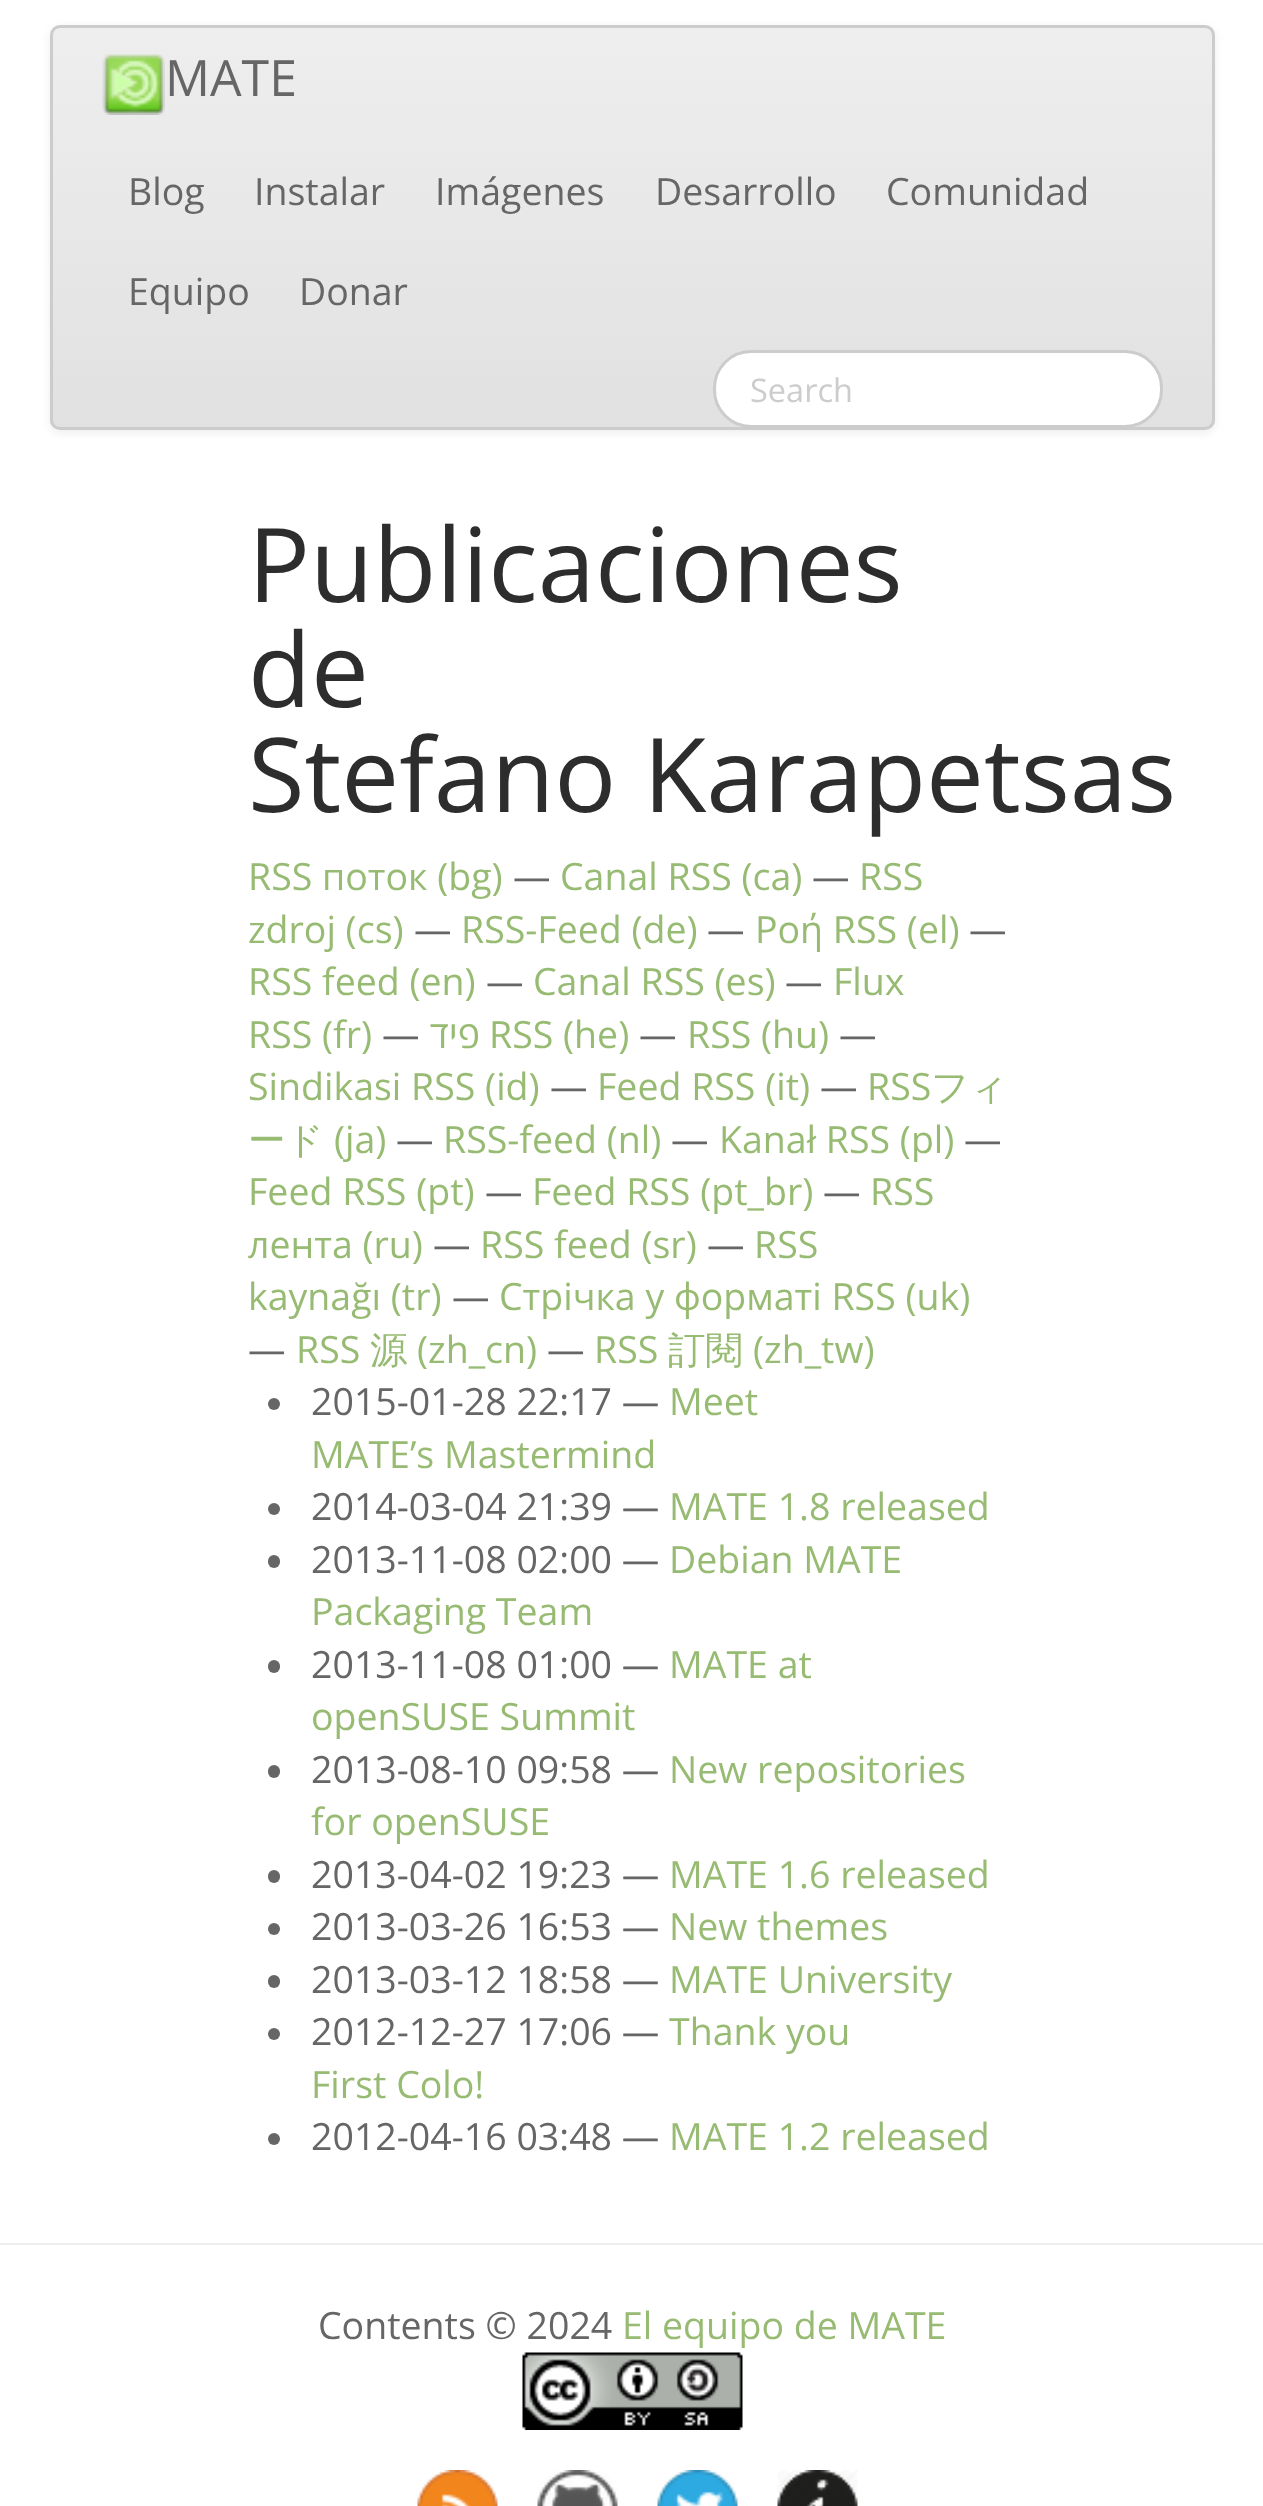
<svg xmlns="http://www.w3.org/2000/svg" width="1263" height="2506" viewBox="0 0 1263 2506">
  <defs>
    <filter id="blur1" x="-50%" y="-200%" width="200%" height="500%"><feGaussianBlur stdDeviation="5"/></filter>
    <clipPath id="clip1"><rect x="50" y="25" width="1165" height="405" rx="10"/></clipPath>
    <linearGradient id="g1" gradientUnits="userSpaceOnUse" x1="633" y1="27" x2="633" y2="428"><stop offset="0" stop-color="#eeeeee"/><stop offset="1" stop-color="#e1e1e1"/></linearGradient>
  </defs>
  <rect width="100%" height="100%" fill="#ffffff"/>
  <rect x="50" y="28" width="1165" height="405" rx="10" fill="#000000" fill-opacity="0.07" filter="url(#blur1)"/>
  <g clip-path="url(#clip1)">
    <rect x="50" y="28" width="1165" height="400" fill="url(#g1)"/>
  </g>
  <rect x="51.5" y="26.5" width="1162" height="402" rx="8.5" fill="none" stroke="#cccccc" stroke-width="3"/>
  <image x="102" y="54" width="63" height="61" href="img1.png"/>
  <text x="165" y="96" font-family="Open Sans" font-size="50" fill="#666666">MATE</text>
  <text x="128" y="205" font-family="Open Sans" font-size="37.5" fill="#666666">Blog</text>
  <text x="254" y="205" font-family="Open Sans" font-size="37.5" fill="#666666">Instalar</text>
  <text x="435" y="205" font-family="Open Sans" font-size="37.5" fill="#666666">Imágenes</text>
  <text x="655" y="205" font-family="Open Sans" font-size="37.5" fill="#666666">Desarrollo</text>
  <text x="886" y="205" font-family="Open Sans" font-size="37.5" fill="#666666">Comunidad</text>
  <text x="128" y="305" font-family="Open Sans" font-size="37.5" fill="#666666">Equipo</text>
  <text x="299" y="305" font-family="Open Sans" font-size="37.5" fill="#666666">Donar</text>
  <rect x="714.5" y="351.5" width="447" height="75" rx="36.5" fill="#ffffff" stroke="#cccccc" stroke-width="3"/>
  <text x="750" y="402" font-family="Open Sans" font-size="32.5" fill="#cccccc">Search</text>
  <text x="248" y="602" font-family="Open Sans" font-size="103.1" fill="#2d2d2d">Publicaciones</text>
  <text x="248" y="707" font-family="Open Sans" font-size="103.1" fill="#2d2d2d">de</text>
  <text x="248" y="812" font-family="Open Sans" font-size="103.1" fill="#2d2d2d">Stefano Karapetsas</text>
  <text x="248" y="890" font-family="Open Sans" font-size="37.5" fill="#97bb72">RSS поток (bg)</text>
  <text x="513" y="890" font-family="Open Sans" font-size="37.5" fill="#666666">—</text>
  <text x="560" y="890" font-family="Open Sans" font-size="37.5" fill="#97bb72">Canal RSS (ca)</text>
  <text x="812" y="890" font-family="Open Sans" font-size="37.5" fill="#666666">—</text>
  <text x="859" y="890" font-family="Open Sans" font-size="37.5" fill="#97bb72">RSS</text>
  <text x="248" y="943" font-family="Open Sans" font-size="37.5" fill="#97bb72">zdroj (cs)</text>
  <text x="414" y="943" font-family="Open Sans" font-size="37.5" fill="#666666">—</text>
  <text x="461" y="943" font-family="Open Sans" font-size="37.5" fill="#97bb72">RSS-Feed (de)</text>
  <text x="707" y="943" font-family="Open Sans" font-size="37.5" fill="#666666">—</text>
  <text x="755" y="943" font-family="Open Sans" font-size="37.5" fill="#97bb72">Ροή RSS (el)</text>
  <text x="969" y="943" font-family="Open Sans" font-size="37.5" fill="#666666">—</text>
  <text x="248" y="995" font-family="Open Sans" font-size="37.5" fill="#97bb72">RSS feed (en)</text>
  <text x="486" y="995" font-family="Open Sans" font-size="37.5" fill="#666666">—</text>
  <text x="533" y="995" font-family="Open Sans" font-size="37.5" fill="#97bb72">Canal RSS (es)</text>
  <text x="785" y="995" font-family="Open Sans" font-size="37.5" fill="#666666">—</text>
  <text x="833" y="995" font-family="Open Sans" font-size="37.5" fill="#97bb72">Flux</text>
  <text x="248" y="1048" font-family="Open Sans" font-size="37.5" fill="#97bb72">RSS (fr)</text>
  <text x="382" y="1048" font-family="Open Sans" font-size="37.5" fill="#666666">—</text>
  <text x="480" y="1048" font-family="Open Sans" font-size="37.5" direction="rtl" fill="#97bb72">פיד</text>
  <text x="489" y="1048" font-family="Open Sans" font-size="37.5" fill="#97bb72">RSS (he)</text>
  <text x="639" y="1048" font-family="Open Sans" font-size="37.5" fill="#666666">—</text>
  <text x="687" y="1048" font-family="Open Sans" font-size="37.5" fill="#97bb72">RSS (hu)</text>
  <text x="839" y="1048" font-family="Open Sans" font-size="37.5" fill="#666666">—</text>
  <text x="248" y="1100" font-family="Open Sans" font-size="37.5" fill="#97bb72">Sindikasi RSS (id)</text>
  <text x="550" y="1100" font-family="Open Sans" font-size="37.5" fill="#666666">—</text>
  <text x="597" y="1100" font-family="Open Sans" font-size="37.5" fill="#97bb72">Feed RSS (it)</text>
  <text x="820" y="1100" font-family="Open Sans" font-size="37.5" fill="#666666">—</text>
  <text x="867" y="1100" font-family="Open Sans" font-size="37.5" fill="#97bb72">RSS</text>
  <text x="931" y="1100" font-family="WenQuanYi Zen Hei" font-size="37.5" font-weight="500" fill="#97bb72">フィ</text>
  <text x="248" y="1153" font-family="WenQuanYi Zen Hei" font-size="37.5" font-weight="500" fill="#97bb72">ード</text>
  <text x="334" y="1153" font-family="Open Sans" font-size="37.5" fill="#97bb72">(ja)</text>
  <text x="396" y="1153" font-family="Open Sans" font-size="37.5" fill="#666666">—</text>
  <text x="443" y="1153" font-family="Open Sans" font-size="37.5" fill="#97bb72">RSS-feed (nl)</text>
  <text x="671" y="1153" font-family="Open Sans" font-size="37.5" fill="#666666">—</text>
  <text x="719" y="1153" font-family="Open Sans" font-size="37.5" fill="#97bb72">Kanał RSS (pl)</text>
  <text x="964" y="1153" font-family="Open Sans" font-size="37.5" fill="#666666">—</text>
  <text x="248" y="1205" font-family="Open Sans" font-size="37.5" fill="#97bb72">Feed RSS (pt)</text>
  <text x="485" y="1205" font-family="Open Sans" font-size="37.5" fill="#666666">—</text>
  <text x="532" y="1205" font-family="Open Sans" font-size="37.5" fill="#97bb72">Feed RSS (pt_br)</text>
  <text x="823" y="1205" font-family="Open Sans" font-size="37.5" fill="#666666">—</text>
  <text x="870" y="1205" font-family="Open Sans" font-size="37.5" fill="#97bb72">RSS</text>
  <text x="248" y="1258" font-family="Open Sans" font-size="37.5" fill="#97bb72">лента (ru)</text>
  <text x="433" y="1258" font-family="Open Sans" font-size="37.5" fill="#666666">—</text>
  <text x="480" y="1258" font-family="Open Sans" font-size="37.5" fill="#97bb72">RSS feed (sr)</text>
  <text x="707" y="1258" font-family="Open Sans" font-size="37.5" fill="#666666">—</text>
  <text x="754" y="1258" font-family="Open Sans" font-size="37.5" fill="#97bb72">RSS</text>
  <text x="248" y="1310" font-family="Open Sans" font-size="37.5" fill="#97bb72">kaynağı (tr)</text>
  <text x="452" y="1310" font-family="Open Sans" font-size="37.5" fill="#666666">—</text>
  <text x="499" y="1310" font-family="Open Sans" font-size="37.5" fill="#97bb72">Стрічка у форматі RSS (uk)</text>
  <text x="248" y="1363" font-family="Open Sans" font-size="37.5" fill="#666666">—</text>
  <text x="296" y="1363" font-family="Open Sans" font-size="37.5" fill="#97bb72">RSS</text>
  <text x="370" y="1363" font-family="WenQuanYi Zen Hei" font-size="37.5" font-weight="500" fill="#97bb72">源</text>
  <text x="417" y="1363" font-family="Open Sans" font-size="37.5" fill="#97bb72">(zh_cn)</text>
  <text x="547" y="1363" font-family="Open Sans" font-size="37.5" fill="#666666">—</text>
  <text x="594" y="1363" font-family="Open Sans" font-size="37.5" fill="#97bb72">RSS</text>
  <text x="668" y="1363" font-family="WenQuanYi Zen Hei" font-size="37.5" font-weight="500" fill="#97bb72">訂閱</text>
  <text x="753" y="1363" font-family="Open Sans" font-size="37.5" fill="#97bb72">(zh_tw)</text>
  <circle cx="274" cy="1404" r="6" fill="#666666"/>
  <text x="311" y="1415" font-family="Open Sans" font-size="37.5" fill="#666666">2015-01-28 22:17 —</text>
  <text x="669" y="1415" font-family="Open Sans" font-size="37.5" fill="#97bb72">Meet</text>
  <text x="311" y="1468" font-family="Open Sans" font-size="37.5" fill="#97bb72">MATE’s Mastermind</text>
  <circle cx="274" cy="1509" r="6" fill="#666666"/>
  <text x="311" y="1520" font-family="Open Sans" font-size="37.5" fill="#666666">2014-03-04 21:39 —</text>
  <text x="669" y="1520" font-family="Open Sans" font-size="37.5" fill="#97bb72">MATE 1.8 released</text>
  <rect x="268" y="1555" width="12" height="13" rx="6" fill="#666666"/>
  <text x="311" y="1573" font-family="Open Sans" font-size="37.5" fill="#666666">2013-11-08 02:00 —</text>
  <text x="669" y="1573" font-family="Open Sans" font-size="37.5" fill="#97bb72">Debian MATE</text>
  <text x="311" y="1625" font-family="Open Sans" font-size="37.5" fill="#97bb72">Packaging Team</text>
  <rect x="268" y="1660" width="12" height="13" rx="6" fill="#666666"/>
  <text x="311" y="1678" font-family="Open Sans" font-size="37.5" fill="#666666">2013-11-08 01:00 —</text>
  <text x="669" y="1678" font-family="Open Sans" font-size="37.5" fill="#97bb72">MATE at</text>
  <text x="311" y="1730" font-family="Open Sans" font-size="37.5" fill="#97bb72">openSUSE Summit</text>
  <rect x="268" y="1765" width="12" height="13" rx="6" fill="#666666"/>
  <text x="311" y="1783" font-family="Open Sans" font-size="37.5" fill="#666666">2013-08-10 09:58 —</text>
  <text x="669" y="1783" font-family="Open Sans" font-size="37.5" fill="#97bb72">New repositories</text>
  <text x="311" y="1835" font-family="Open Sans" font-size="37.5" fill="#97bb72">for openSUSE</text>
  <rect x="268" y="1870" width="12" height="13" rx="6" fill="#666666"/>
  <text x="311" y="1888" font-family="Open Sans" font-size="37.5" fill="#666666">2013-04-02 19:23 —</text>
  <text x="669" y="1888" font-family="Open Sans" font-size="37.5" fill="#97bb72">MATE 1.6 released</text>
  <circle cx="274" cy="1929" r="6" fill="#666666"/>
  <text x="311" y="1940" font-family="Open Sans" font-size="37.5" fill="#666666">2013-03-26 16:53 —</text>
  <text x="669" y="1940" font-family="Open Sans" font-size="37.5" fill="#97bb72">New themes</text>
  <rect x="268" y="1975" width="12" height="13" rx="6" fill="#666666"/>
  <text x="311" y="1993" font-family="Open Sans" font-size="37.5" fill="#666666">2013-03-12 18:58 —</text>
  <text x="669" y="1993" font-family="Open Sans" font-size="37.5" fill="#97bb72">MATE University</text>
  <circle cx="274" cy="2034" r="6" fill="#666666"/>
  <text x="311" y="2045" font-family="Open Sans" font-size="37.5" fill="#666666">2012-12-27 17:06 —</text>
  <text x="669" y="2045" font-family="Open Sans" font-size="37.5" fill="#97bb72">Thank you</text>
  <text x="311" y="2098" font-family="Open Sans" font-size="37.5" fill="#97bb72">First Colo!</text>
  <circle cx="274" cy="2139" r="6" fill="#666666"/>
  <text x="311" y="2150" font-family="Open Sans" font-size="37.5" fill="#666666">2012-04-16 03:48 —</text>
  <text x="669" y="2150" font-family="Open Sans" font-size="37.5" fill="#97bb72">MATE 1.2 released</text>
  <rect x="0" y="2243" width="1263" height="2" fill="#eeeeee"/>
  <text x="318" y="2339" font-family="Open Sans" font-size="37.5" fill="#666666">Contents © 2024</text>
  <text x="622" y="2339" font-family="Open Sans" font-size="37.5" fill="#97bb72">El equipo de MATE</text>
  <image x="522" y="2352" width="221" height="78" href="img2.png"/>
  <image x="417" y="2470" width="81" height="36" href="img3.png"/>
  <image x="537" y="2470" width="81" height="36" href="img4.png"/>
  <image x="657" y="2470" width="81" height="36" href="img5.png"/>
  <image x="777" y="2470" width="81" height="36" href="img6.png"/>
</svg>
